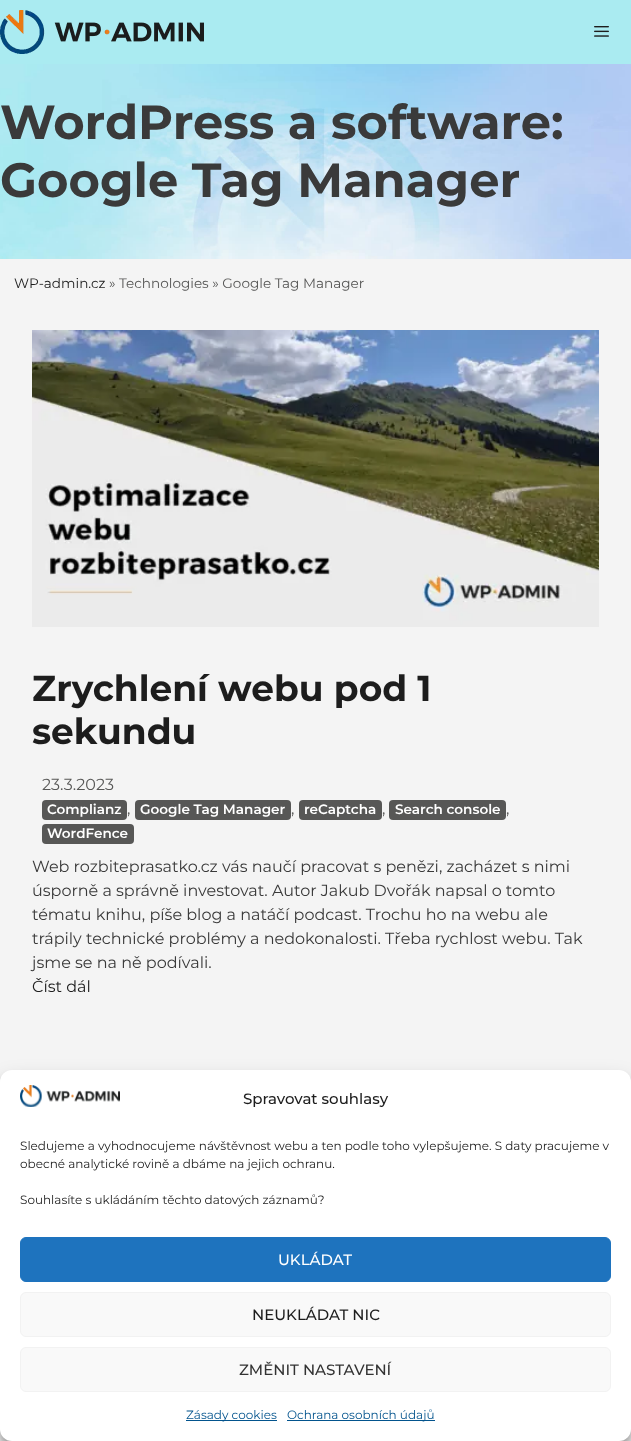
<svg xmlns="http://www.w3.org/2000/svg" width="631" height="1441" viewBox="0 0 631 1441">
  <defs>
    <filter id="blur1" x="-50%" y="-200%" width="200%" height="500%"><feGaussianBlur stdDeviation="3"/></filter>
    <filter id="blur2" x="-50%" y="-200%" width="200%" height="500%"><feGaussianBlur stdDeviation="10"/></filter>
  </defs>
  <rect width="100%" height="100%" fill="#f4f4f4"/>
  <rect x="0" y="0" width="631" height="64" fill="#aaebf1"/>
  <image x="0" y="10" width="204" height="44" href="img1.png"/>
  <image x="594" y="26" width="15" height="11" href="img2.png"/>
  <image x="0" y="64" width="631" height="195" href="img3.png"/>
  <text x="0" y="139" font-family="Montserrat" font-size="48" font-weight="bold" fill="#3a3a3a">WordPress a software:</text>
  <text x="0" y="197" font-family="Montserrat" font-size="48" font-weight="bold" fill="#3a3a3a">Google Tag Manager</text>
  <text x="14" y="288" font-family="Montserrat" font-size="13.6" fill="#1d1d1d">WP-admin.cz</text>
  <text x="109" y="288" font-family="Montserrat" font-size="13.6" fill="#575756">» Technologies » Google Tag Manager</text>
  <image x="32" y="330" width="567" height="297" href="img4.png"/>
  <text x="32" y="701" font-family="Montserrat" font-size="36" font-weight="bold" fill="#1d1d1d">Zrychlení webu pod 1</text>
  <text x="32" y="744" font-family="Montserrat" font-size="36" font-weight="bold" fill="#1d1d1d">sekundu</text>
  <text x="42" y="790" font-family="Montserrat" font-size="16" fill="#575756">23.3.2023</text>
  <rect x="42" y="800" width="85" height="20" rx="4" fill="#575756"/>
  <text x="47" y="814" font-family="Montserrat" font-size="13.6" font-weight="600" fill="#ffffff">Complianz</text>
  <text x="127" y="814" font-family="Montserrat" font-size="16" fill="#575756">,</text>
  <rect x="135" y="800" width="156" height="20" rx="4" fill="#575756"/>
  <text x="140" y="814" font-family="Montserrat" font-size="13.6" font-weight="600" fill="#ffffff">Google Tag Manager</text>
  <text x="291" y="814" font-family="Montserrat" font-size="16" fill="#575756">,</text>
  <rect x="299" y="800" width="83" height="20" rx="4" fill="#575756"/>
  <text x="304" y="814" font-family="Montserrat" font-size="13.6" font-weight="600" fill="#ffffff">reCaptcha</text>
  <text x="382" y="814" font-family="Montserrat" font-size="16" fill="#575756">,</text>
  <rect x="389" y="800" width="117" height="20" rx="4" fill="#575756"/>
  <text x="395" y="814" font-family="Montserrat" font-size="13.6" font-weight="600" fill="#ffffff">Search console</text>
  <text x="506" y="814" font-family="Montserrat" font-size="16" fill="#575756">,</text>
  <rect x="42" y="824" width="92" height="20" rx="4" fill="#575756"/>
  <text x="47" y="838" font-family="Montserrat" font-size="13.6" font-weight="600" fill="#ffffff">WordFence</text>
  <text x="32" y="872" font-family="Montserrat" font-size="16" fill="#3a3a3a">Web rozbiteprasatko.cz vás naučí pracovat s penězi, zacházet s nimi</text>
  <text x="32" y="896" font-family="Montserrat" font-size="16" fill="#3a3a3a">úsporně a správně investovat. Autor Jakub Dvořák napsal o tomto</text>
  <text x="32" y="920" font-family="Montserrat" font-size="16" fill="#3a3a3a">tématu knihu, píše blog a natáčí podcast. Trochu ho na webu ale</text>
  <text x="32" y="944" font-family="Montserrat" font-size="16" fill="#3a3a3a">trápily technické problémy a nedokonalosti. Třeba rychlost webu. Tak</text>
  <text x="32" y="968" font-family="Montserrat" font-size="16" fill="#3a3a3a">jsme se na ně podívali.</text>
  <text x="32" y="992" font-family="Montserrat" font-size="16" fill="#1d1d1d">Číst dál</text>
  <rect x="0" y="1076" width="631" height="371" rx="12" fill="#000000" fill-opacity="0.23" filter="url(#blur1)"/>
  <rect x="0" y="1080" width="631" height="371" rx="12" fill="#000000" fill-opacity="0.19" filter="url(#blur2)"/>
  <rect x="0" y="1070" width="631" height="371" rx="12" fill="#ffffff"/>
  <image x="20" y="1085" width="100" height="22" href="img5.png"/>
  <text x="243" y="1104" font-family="Montserrat" font-size="15" font-weight="500" fill="#1d1d1d">Spravovat souhlasy</text>
  <text x="20" y="1150" font-family="Montserrat" font-size="12" fill="#1d1d1d">Sledujeme a vyhodnocujeme návštěvnost webu a ten podle toho vylepšujeme. S daty pracujeme v</text>
  <text x="20" y="1168" font-family="Montserrat" font-size="12" fill="#1d1d1d">obecné analytické rovině a dbáme na jejich ochranu.</text>
  <text x="20" y="1204" font-family="Montserrat" font-size="12" fill="#1d1d1d">Souhlasíte s ukládáním těchto datových záznamů?</text>
  <rect x="20.5" y="1237.5" width="590" height="44" rx="5.5" fill="#1e73be" stroke="#1e73be"/>
  <text x="278" y="1265" font-family="Montserrat" font-size="15" font-weight="500" fill="#ffffff">UKLÁDAT</text>
  <rect x="20.5" y="1292.5" width="590" height="44" rx="5.5" fill="#f9f9f9" stroke="#f2f2f2"/>
  <text x="252" y="1320" font-family="Montserrat" font-size="15" font-weight="500" fill="#1d1d1d">NEUKLÁDAT NIC</text>
  <rect x="20.5" y="1347.5" width="590" height="44" rx="5.5" fill="#f9f9f9" stroke="#f2f2f2"/>
  <text x="239" y="1375" font-family="Montserrat" font-size="15" font-weight="500" fill="#333333">ZMĚNIT NASTAVENÍ</text>
  <rect x="186" y="1420" width="91" height="1" fill="#02538d"/>
  <text x="186" y="1419" font-family="Montserrat" font-size="12" fill="#02538d">Zásady cookies</text>
  <rect x="287" y="1420" width="148" height="1" fill="#02538d"/>
  <text x="287" y="1419" font-family="Montserrat" font-size="12" fill="#02538d">Ochrana osobních údajů</text>
</svg>
